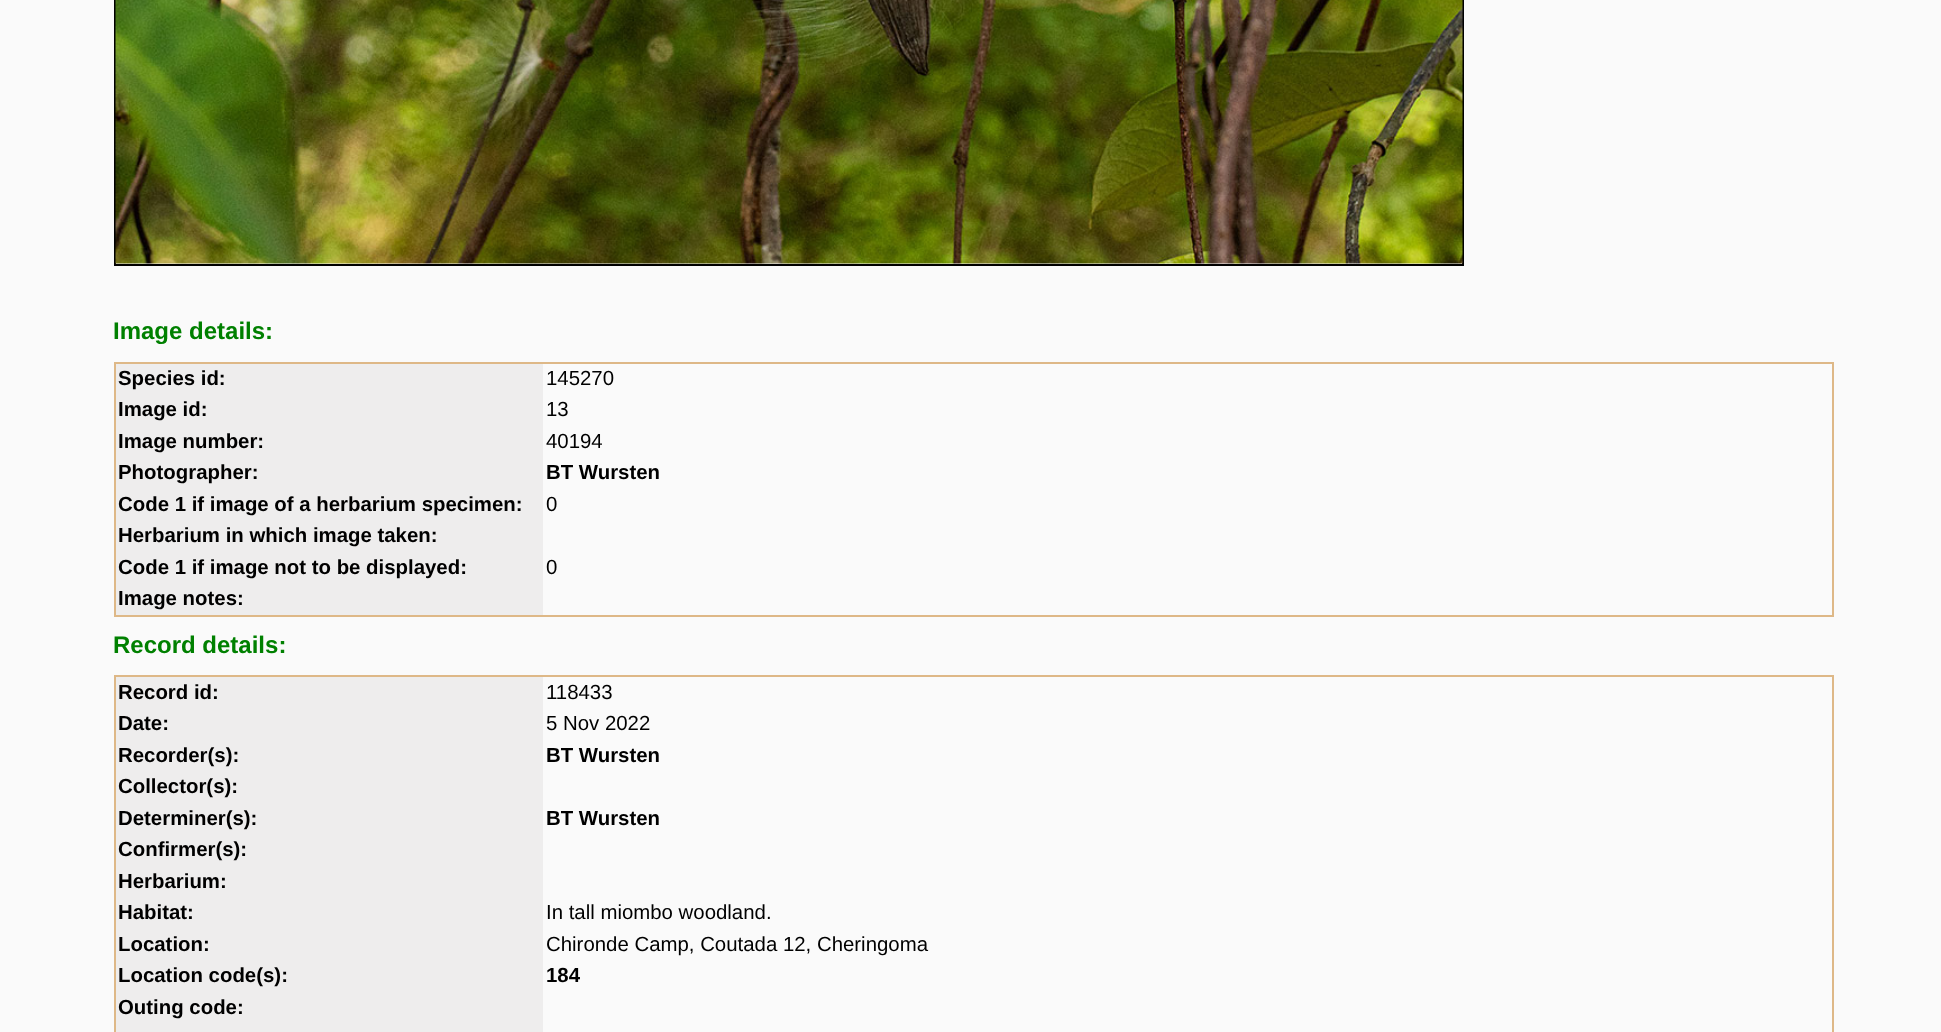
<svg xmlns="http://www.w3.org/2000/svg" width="1941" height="1032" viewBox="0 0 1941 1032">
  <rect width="100%" height="100%" fill="#fafafa"/>
  <rect x="115" y="-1" width="1348" height="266" fill="none" stroke="#000000" stroke-width="2"/>
  <image x="115" y="0" width="1348" height="264" href="img1.png"/>
  <text x="113" y="339" font-family="Liberation Sans" font-size="24" font-weight="bold" fill="#008000">Image details:</text>
  <rect x="114" y="362" width="1719" height="2" fill="#deb887"/>
  <rect x="1832" y="362" width="2" height="255" fill="#deb887"/>
  <rect x="114" y="615" width="1719" height="2" fill="#deb887"/>
  <rect x="114" y="362" width="2" height="255" fill="#deb887"/>
  <rect x="116" y="364" width="427" height="251" fill="#eeeded"/>
  <text x="118" y="385" font-family="Liberation Sans" font-size="20.4" font-weight="bold" fill="#000000">Species id:</text>
  <text x="546" y="385" font-family="Liberation Sans" font-size="20.4" fill="#000000">145270</text>
  <text x="118" y="416" font-family="Liberation Sans" font-size="20.4" font-weight="bold" fill="#000000">Image id:</text>
  <text x="546" y="416" font-family="Liberation Sans" font-size="20.4" fill="#000000">13</text>
  <text x="118" y="448" font-family="Liberation Sans" font-size="20.4" font-weight="bold" fill="#000000">Image number:</text>
  <text x="546" y="448" font-family="Liberation Sans" font-size="20.4" fill="#000000">40194</text>
  <text x="118" y="479" font-family="Liberation Sans" font-size="20.4" font-weight="bold" fill="#000000">Photographer:</text>
  <text x="546" y="479" font-family="Liberation Sans" font-size="20.4" font-weight="bold" fill="#000000">BT Wursten</text>
  <text x="118" y="511" font-family="Liberation Sans" font-size="20.4" font-weight="bold" fill="#000000">Code 1 if image of a herbarium specimen:</text>
  <text x="546" y="511" font-family="Liberation Sans" font-size="20.4" fill="#000000">0</text>
  <text x="118" y="542" font-family="Liberation Sans" font-size="20.4" font-weight="bold" fill="#000000">Herbarium in which image taken:</text>
  <text x="118" y="574" font-family="Liberation Sans" font-size="20.4" font-weight="bold" fill="#000000">Code 1 if image not to be displayed:</text>
  <text x="546" y="574" font-family="Liberation Sans" font-size="20.4" fill="#000000">0</text>
  <text x="118" y="605" font-family="Liberation Sans" font-size="20.4" font-weight="bold" fill="#000000">Image notes:</text>
  <text x="113" y="653" font-family="Liberation Sans" font-size="24" font-weight="bold" fill="#008000">Record details:</text>
  <rect x="114" y="675" width="1719" height="2" fill="#deb887"/>
  <rect x="1832" y="675" width="2" height="357" fill="#deb887"/>
  <rect x="114" y="675" width="2" height="357" fill="#deb887"/>
  <rect x="116" y="677" width="427" height="355" fill="#eeeded"/>
  <text x="118" y="699" font-family="Liberation Sans" font-size="20.4" font-weight="bold" fill="#000000">Record id:</text>
  <text x="546" y="699" font-family="Liberation Sans" font-size="20.4" fill="#000000">118433</text>
  <text x="118" y="730" font-family="Liberation Sans" font-size="20.4" font-weight="bold" fill="#000000">Date:</text>
  <text x="546" y="730" font-family="Liberation Sans" font-size="20.4" fill="#000000">5 Nov 2022</text>
  <text x="118" y="762" font-family="Liberation Sans" font-size="20.4" font-weight="bold" fill="#000000">Recorder(s):</text>
  <text x="546" y="762" font-family="Liberation Sans" font-size="20.4" font-weight="bold" fill="#000000">BT Wursten</text>
  <text x="118" y="793" font-family="Liberation Sans" font-size="20.4" font-weight="bold" fill="#000000">Collector(s):</text>
  <text x="118" y="825" font-family="Liberation Sans" font-size="20.4" font-weight="bold" fill="#000000">Determiner(s):</text>
  <text x="546" y="825" font-family="Liberation Sans" font-size="20.4" font-weight="bold" fill="#000000">BT Wursten</text>
  <text x="118" y="856" font-family="Liberation Sans" font-size="20.4" font-weight="bold" fill="#000000">Confirmer(s):</text>
  <text x="118" y="888" font-family="Liberation Sans" font-size="20.4" font-weight="bold" fill="#000000">Herbarium:</text>
  <text x="118" y="919" font-family="Liberation Sans" font-size="20.4" font-weight="bold" fill="#000000">Habitat:</text>
  <text x="546" y="919" font-family="Liberation Sans" font-size="20.4" fill="#000000">In tall miombo woodland.</text>
  <text x="118" y="951" font-family="Liberation Sans" font-size="20.4" font-weight="bold" fill="#000000">Location:</text>
  <text x="546" y="951" font-family="Liberation Sans" font-size="20.4" fill="#000000">Chironde Camp, Coutada 12, Cheringoma</text>
  <text x="118" y="982" font-family="Liberation Sans" font-size="20.4" font-weight="bold" fill="#000000">Location code(s):</text>
  <text x="546" y="982" font-family="Liberation Sans" font-size="20.4" font-weight="bold" fill="#000000">184</text>
  <text x="118" y="1014" font-family="Liberation Sans" font-size="20.4" font-weight="bold" fill="#000000">Outing code:</text>
</svg>
